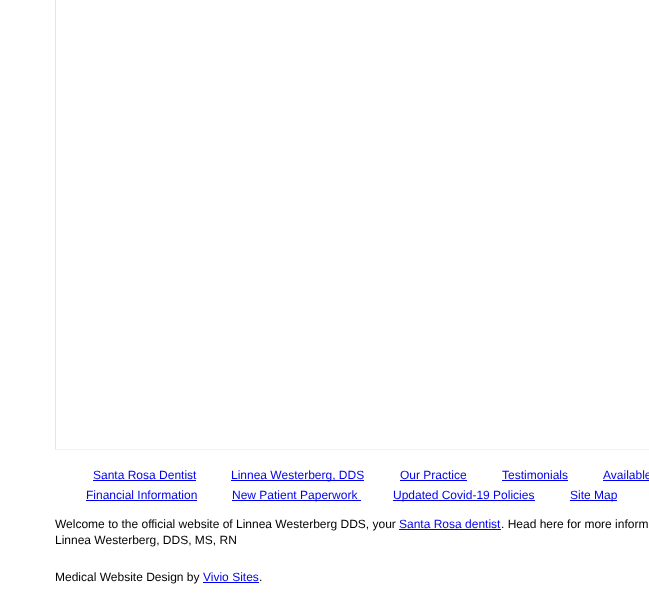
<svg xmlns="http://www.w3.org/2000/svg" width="649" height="606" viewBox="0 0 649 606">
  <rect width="100%" height="100%" fill="#ffffff"/>
  <rect x="55" y="0" width="1" height="450" fill="#e4e5e7"/>
  <rect x="55" y="449" width="594" height="1" fill="#f1f2f3"/>
  <text x="93" y="479" font-family="Liberation Sans" font-size="12" fill="#0000ee">Santa Rosa Dentist</text>
  <rect x="93" y="480" width="103" height="1" fill="#0000ee"/>
  <rect x="231" y="480" width="133" height="1" fill="#0000ee"/>
  <text x="231" y="479" font-family="Liberation Sans" font-size="12" fill="#0000ee">Linnea Westerberg, DDS</text>
  <text x="400" y="479" font-family="Liberation Sans" font-size="12" fill="#0000ee">Our Practice</text>
  <rect x="400" y="480" width="67" height="1" fill="#0000ee"/>
  <text x="502" y="479" font-family="Liberation Sans" font-size="12" fill="#0000ee">Testimonials</text>
  <rect x="502" y="480" width="66" height="1" fill="#0000ee"/>
  <text x="603" y="479" font-family="Liberation Sans" font-size="12" fill="#0000ee">Available</text>
  <rect x="603" y="480" width="46" height="1" fill="#0000ee"/>
  <text x="86" y="499" font-family="Liberation Sans" font-size="12" fill="#0000ee">Financial Information</text>
  <rect x="86" y="500" width="111" height="1" fill="#0000ee"/>
  <rect x="232" y="500" width="129" height="1" fill="#0000ee"/>
  <text x="232" y="499" font-family="Liberation Sans" font-size="12" fill="#0000ee">New Patient Paperwork</text>
  <rect x="393" y="500" width="142" height="1" fill="#0000ee"/>
  <text x="393" y="499" font-family="Liberation Sans" font-size="12" fill="#0000ee">Updated Covid-19 Policies</text>
  <rect x="570" y="500" width="47" height="1" fill="#0000ee"/>
  <text x="570" y="499" font-family="Liberation Sans" font-size="12" fill="#0000ee">Site Map</text>
  <text x="55" y="528" font-family="Liberation Sans" font-size="12" fill="#000000">Welcome to the official website of Linnea Westerberg DDS, your</text>
  <text x="399" y="528" font-family="Liberation Sans" font-size="12" fill="#0000ee">Santa Rosa dentist</text>
  <rect x="399" y="529" width="102" height="1" fill="#0000ee"/>
  <text x="501" y="528" font-family="Liberation Sans" font-size="12" fill="#000000">. Head here for more inform</text>
  <text x="55" y="544" font-family="Liberation Sans" font-size="12" fill="#000000">Linnea Westerberg, DDS, MS, RN</text>
  <text x="55" y="581" font-family="Liberation Sans" font-size="12" fill="#000000">Medical Website Design by</text>
  <text x="203" y="581" font-family="Liberation Sans" font-size="12" fill="#0000ee">Vivio Sites</text>
  <rect x="203" y="582" width="56" height="1" fill="#0000ee"/>
  <text x="259" y="581" font-family="Liberation Sans" font-size="12" fill="#000000">.</text>
</svg>
